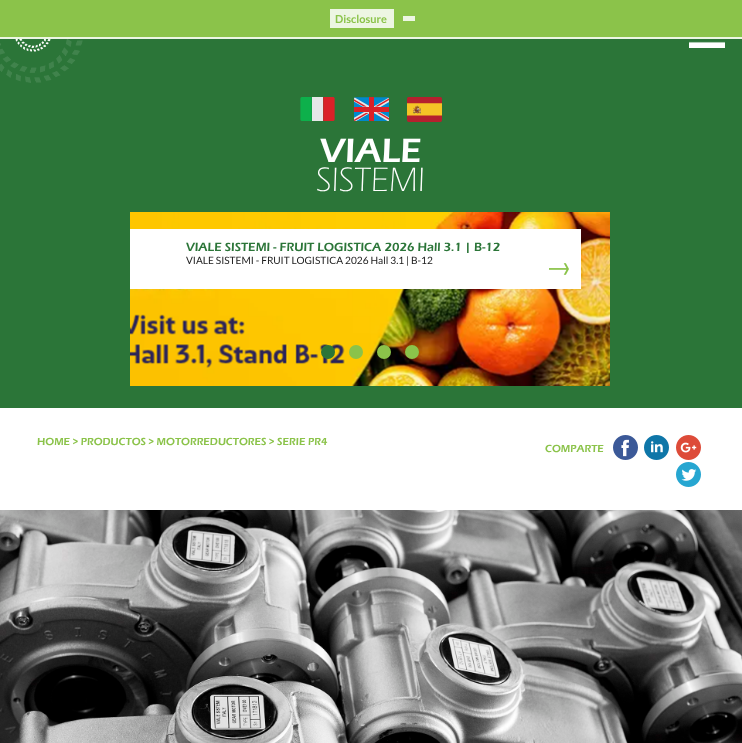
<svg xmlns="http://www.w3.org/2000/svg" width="742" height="743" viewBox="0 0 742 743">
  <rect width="100%" height="100%" fill="#ffffff"/>
  <rect x="0" y="0" width="742" height="37" fill="#8bc34a"/>
  <rect x="0" y="37" width="742" height="2" fill="#edf6e3"/>
  <rect x="330" y="9" width="64" height="19" fill="#edf6e3"/>
  <text x="335" y="23" font-family="Lato" font-size="11" font-weight="bold" fill="#8bc34a">Disclosure</text>
  <rect x="402.5" y="15.5" width="13" height="6" fill="#edf6e3" stroke="#8bc34a"/>
  <rect x="0" y="39" width="742" height="369" fill="#2b7538"/>
  <image x="0" y="39" width="83" height="44" href="img1.png"/>
  <image x="689" y="41" width="36" height="7" href="img2.png"/>
  <image x="300" y="97" width="35" height="24" href="img3.png"/>
  <image x="354" y="97" width="35" height="24" href="img4.png"/>
  <image x="407" y="97" width="35" height="25" href="img5.png"/>
  <text x="320" y="162" font-family="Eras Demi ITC" font-size="35" fill="#ffffff">VIALE</text>
  <text x="316" y="191" font-family="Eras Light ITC" font-size="35" font-weight="300" fill="#ffffff">SISTEMI</text>
  <image x="130" y="212" width="480" height="174" href="img6.png"/>
  <rect x="130" y="229" width="451" height="60" fill="#ffffff"/>
  <text x="186" y="251" font-family="Eras Demi ITC" font-size="12.3" fill="#2b7538">VIALE SISTEMI - FRUIT LOGISTICA 2026 Hall 3.1 | B-12</text>
  <text x="186" y="264" font-family="Lato" font-size="10.1" fill="#202020">VIALE SISTEMI - FRUIT LOGISTICA 2026 Hall 3.1 | B-12</text>
  <image x="549" y="263" width="20" height="12" href="img7.png"/>
  <circle cx="328" cy="352" r="7" fill="#2b7538"/>
  <circle cx="356" cy="352" r="7" fill="#8bc34a"/>
  <circle cx="384" cy="352" r="7" fill="#8bc34a"/>
  <circle cx="412" cy="352" r="7" fill="#8bc34a"/>
  <text x="37" y="445" font-family="Eras Demi ITC" font-size="10.65" fill="#8bc34a">HOME &gt; PRODUCTOS &gt; MOTORREDUCTORES &gt; SERIE PR4</text>
  <text x="545" y="452" font-family="Eras Demi ITC" font-size="10.65" fill="#8bc34a">COMPARTE</text>
  <image x="613" y="435" width="25" height="25" href="img8.png"/>
  <image x="644" y="435" width="25" height="25" href="img9.png"/>
  <image x="676" y="435" width="25" height="25" href="img10.png"/>
  <image x="676" y="462" width="25" height="25" href="img11.png"/>
  <image x="0" y="510" width="742" height="233" href="img12.png"/>
</svg>
